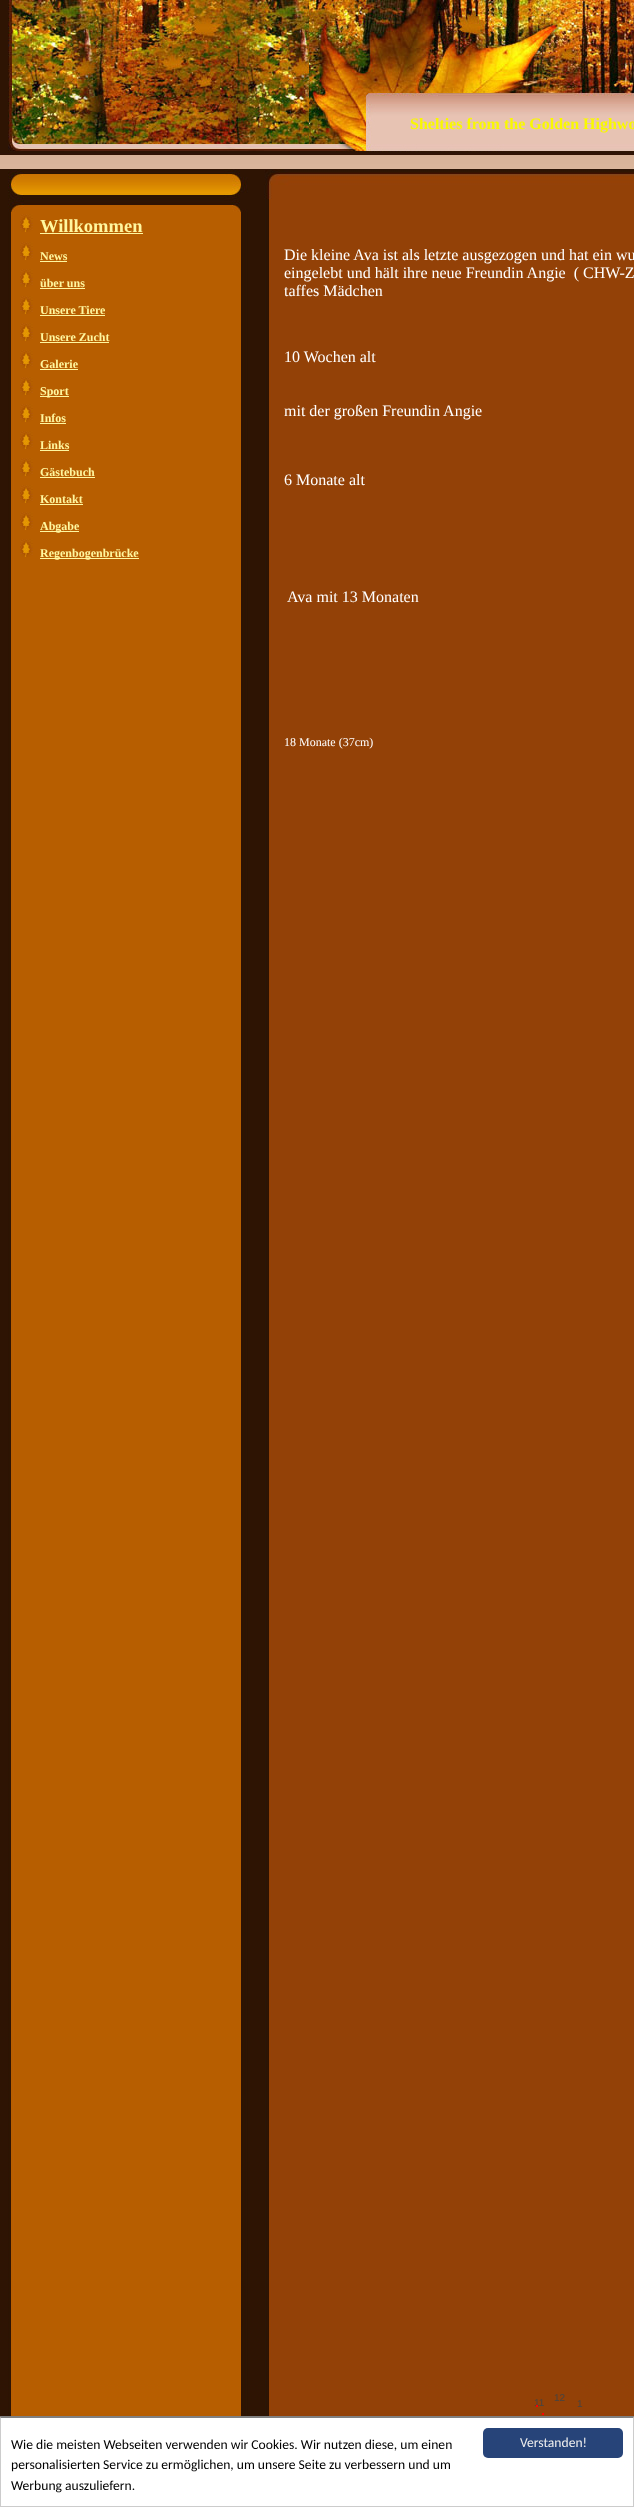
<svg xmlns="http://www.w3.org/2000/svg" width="634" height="2507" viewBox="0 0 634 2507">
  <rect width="100%" height="100%" fill="#ffffff"/>
  <image x="0" y="155" width="634" height="14" href="img1.png"/>
  <image x="0" y="0" width="634" height="155" href="img2.png"/>
  <text x="410" y="129" font-family="Liberation Serif" font-size="16" font-weight="bold" fill="#f9f900">Shelties from the Golden Highwo</text>
  <image x="0" y="169" width="634" height="2249" href="img3.png"/>
  <image x="8" y="169" width="240" height="43" href="img4.png"/>
  <image x="20" y="214" width="13" height="18" href="img5.png"/>
  <text x="40" y="232" font-family="Liberation Serif" font-size="18.5" font-weight="bold" fill="#fff79f">Willkommen</text>
  <rect x="40" y="233" width="103" height="1" fill="#fff79f"/>
  <image x="20" y="242" width="13" height="18" href="img5.png"/>
  <text x="40" y="260" font-family="Liberation Serif" font-size="12" font-weight="bold" fill="#fff79f">News</text>
  <rect x="40" y="261" width="27" height="1" fill="#fff79f"/>
  <image x="20" y="269" width="13" height="18" href="img5.png"/>
  <text x="40" y="287" font-family="Liberation Serif" font-size="12" font-weight="bold" fill="#fff79f">über uns</text>
  <rect x="40" y="288" width="45" height="1" fill="#fff79f"/>
  <image x="20" y="296" width="13" height="18" href="img5.png"/>
  <text x="40" y="314" font-family="Liberation Serif" font-size="12" font-weight="bold" fill="#fff79f">Unsere Tiere</text>
  <rect x="40" y="315" width="65" height="1" fill="#fff79f"/>
  <image x="20" y="323" width="13" height="18" href="img5.png"/>
  <text x="40" y="341" font-family="Liberation Serif" font-size="12" font-weight="bold" fill="#fff79f">Unsere Zucht</text>
  <rect x="40" y="342" width="69" height="1" fill="#fff79f"/>
  <image x="20" y="350" width="13" height="18" href="img5.png"/>
  <text x="40" y="368" font-family="Liberation Serif" font-size="12" font-weight="bold" fill="#fff79f">Galerie</text>
  <rect x="40" y="369" width="38" height="1" fill="#fff79f"/>
  <image x="20" y="377" width="13" height="18" href="img5.png"/>
  <rect x="40" y="396" width="29" height="1" fill="#fff79f"/>
  <text x="40" y="395" font-family="Liberation Serif" font-size="12" font-weight="bold" fill="#fff79f">Sport</text>
  <image x="20" y="404" width="13" height="18" href="img5.png"/>
  <text x="40" y="422" font-family="Liberation Serif" font-size="12" font-weight="bold" fill="#fff79f">Infos</text>
  <rect x="40" y="423" width="26" height="1" fill="#fff79f"/>
  <image x="20" y="431" width="13" height="18" href="img5.png"/>
  <text x="40" y="449" font-family="Liberation Serif" font-size="12" font-weight="bold" fill="#fff79f">Links</text>
  <rect x="40" y="450" width="29" height="1" fill="#fff79f"/>
  <image x="20" y="458" width="13" height="18" href="img5.png"/>
  <text x="40" y="476" font-family="Liberation Serif" font-size="12" font-weight="bold" fill="#fff79f">Gästebuch</text>
  <rect x="40" y="477" width="55" height="1" fill="#fff79f"/>
  <image x="20" y="485" width="13" height="18" href="img5.png"/>
  <text x="40" y="503" font-family="Liberation Serif" font-size="12" font-weight="bold" fill="#fff79f">Kontakt</text>
  <rect x="40" y="504" width="43" height="1" fill="#fff79f"/>
  <image x="20" y="512" width="13" height="18" href="img5.png"/>
  <rect x="40" y="531" width="39" height="1" fill="#fff79f"/>
  <text x="40" y="530" font-family="Liberation Serif" font-size="12" font-weight="bold" fill="#fff79f">Abgabe</text>
  <image x="20" y="539" width="13" height="18" href="img5.png"/>
  <rect x="40" y="558" width="99" height="1" fill="#fff79f"/>
  <text x="40" y="557" font-family="Liberation Serif" font-size="12" font-weight="bold" fill="#fff79f">Regenbogenbrücke</text>
  <image x="264" y="169" width="370" height="30" href="img6.png"/>
  <text x="284" y="260" font-family="Liberation Serif" font-size="16" fill="#ffffff">Die kleine Ava ist als letzte ausgezogen und hat ein wu</text>
  <text x="284" y="278" font-family="Liberation Serif" font-size="16" fill="#ffffff" xml:space="preserve">eingelebt und hält ihre neue Freundin Angie  ( CHW-Z</text>
  <text x="284" y="296" font-family="Liberation Serif" font-size="16" fill="#ffffff">taffes Mädchen</text>
  <text x="284" y="362" font-family="Liberation Serif" font-size="16" fill="#ffffff">10 Wochen alt</text>
  <text x="284" y="416" font-family="Liberation Serif" font-size="16" fill="#ffffff">mit der großen Freundin Angie</text>
  <text x="284" y="485" font-family="Liberation Serif" font-size="16" fill="#ffffff">6 Monate alt</text>
  <text x="287" y="602" font-family="Liberation Serif" font-size="16" fill="#ffffff">Ava mit 13 Monaten</text>
  <text x="284" y="746" font-family="Liberation Serif" font-size="12" fill="#ffffff">18 Monate (37cm)</text>
  <text x="554" y="2401" font-family="Liberation Sans" font-size="10" fill="#444444">12</text>
  <text x="534" y="2406" font-family="Liberation Sans" font-size="10" fill="#444444">11</text>
  <text x="577" y="2407" font-family="Liberation Sans" font-size="10" fill="#444444">1</text>
  <rect x="536" y="2405" width="2" height="2" fill="#ff0000"/>
  <rect x="542" y="2413" width="2" height="2" fill="#ff0000"/>
  <path d="M0 2416H634L633 2418H1Z" fill="#808080"/>
  <path d="M634 2416V2507L633 2506V2418Z" fill="#cccccc"/>
  <rect x="0" y="2506" width="634" height="1" fill="#cccccc"/>
  <path d="M0 2507V2416L1 2418V2506Z" fill="#cccccc"/>
  <text x="11" y="2449" font-family="Carlito" font-size="13.6" fill="#000000">Wie die meisten Webseiten verwenden wir Cookies. Wir nutzen diese, um einen</text>
  <text x="11" y="2469" font-family="Carlito" font-size="13.6" fill="#000000">personalisierten Service zu ermöglichen, um unsere Seite zu verbessern und um</text>
  <text x="11" y="2490" font-family="Carlito" font-size="13.6" fill="#000000">Werbung auszuliefern.</text>
  <rect x="483" y="2428" width="140" height="30" rx="5" fill="#274479"/>
  <text x="520" y="2447" font-family="Carlito" font-size="13.6" fill="#eeeeee">Verstanden!</text>
</svg>
